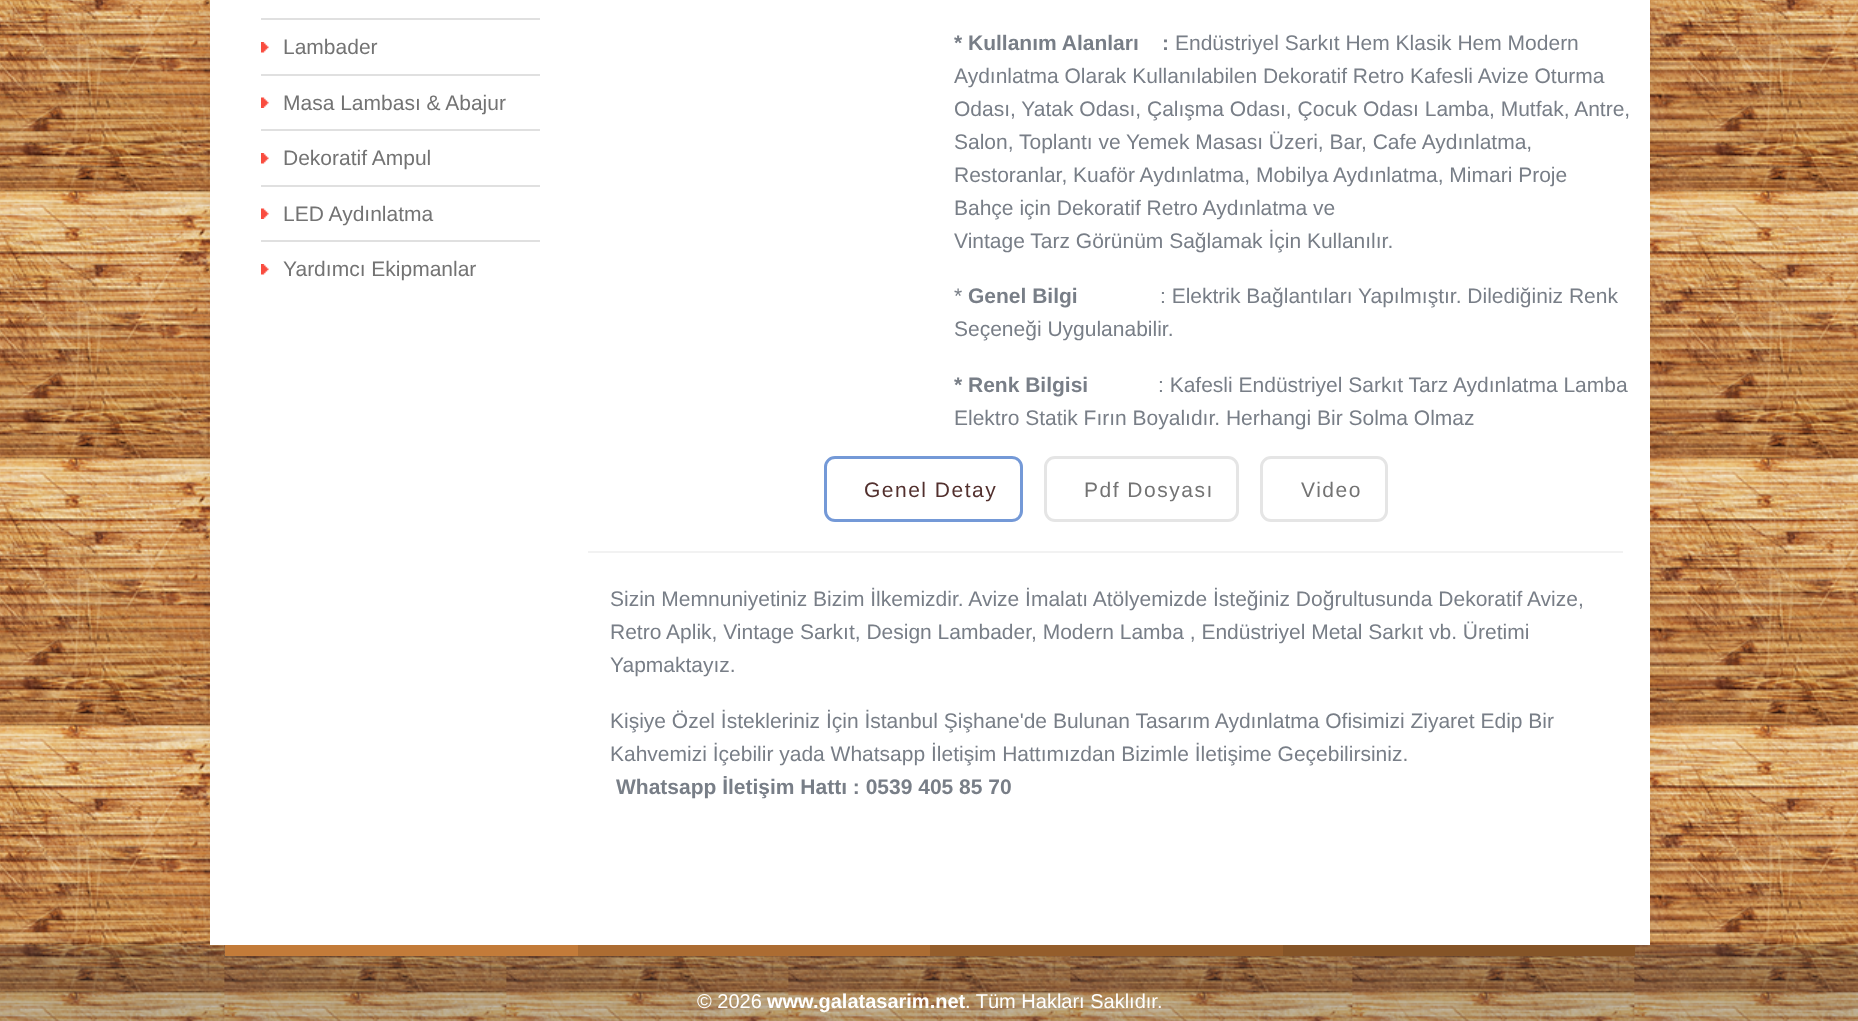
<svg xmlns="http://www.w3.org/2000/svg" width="1858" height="1021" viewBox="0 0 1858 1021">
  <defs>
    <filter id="blur1" x="-50%" y="-200%" width="200%" height="500%"><feGaussianBlur stdDeviation="11"/></filter>
  </defs>
  <rect width="100%" height="100%" fill="#ffffff"/>
  <image x="0" y="0" width="1858" height="1021" href="img1.png"/>
  <rect x="210" y="-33" width="1440" height="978" fill="#000000" fill-opacity="0.06" filter="url(#blur1)"/>
  <rect x="210" y="0" width="1440" height="945" fill="#ffffff"/>
  <rect x="261" y="18" width="279" height="2" fill="#e0e0e0"/>
  <image x="261" y="42" width="8" height="11" href="img2.png"/>
  <rect x="261" y="74" width="279" height="2" fill="#e0e0e0"/>
  <text x="283" y="54" font-family="Liberation Sans" font-size="21" fill="#737373">Lambader</text>
  <image x="261" y="97" width="8" height="11" href="img3.png"/>
  <rect x="261" y="129" width="279" height="2" fill="#e0e0e0"/>
  <text x="283" y="110" font-family="Liberation Sans" font-size="21" fill="#737373">Masa Lambası &amp; Abajur</text>
  <image x="261" y="153" width="8" height="11" href="img2.png"/>
  <rect x="261" y="185" width="279" height="2" fill="#e0e0e0"/>
  <text x="283" y="165" font-family="Liberation Sans" font-size="21" fill="#737373">Dekoratif Ampul</text>
  <image x="261" y="208" width="8" height="11" href="img3.png"/>
  <rect x="261" y="240" width="279" height="2" fill="#e0e0e0"/>
  <text x="283" y="221" font-family="Liberation Sans" font-size="21" fill="#737373">LED Aydınlatma</text>
  <image x="261" y="264" width="8" height="11" href="img2.png"/>
  <text x="283" y="276" font-family="Liberation Sans" font-size="21" fill="#737373">Yardımcı Ekipmanlar</text>
  <text x="954" y="50" font-family="Liberation Sans" font-size="21" font-weight="bold" fill="#787e87" xml:space="preserve">* Kullanım Alanları    :</text>
  <text x="1175" y="50" font-family="Liberation Sans" font-size="21" fill="#787e87">Endüstriyel Sarkıt Hem Klasik Hem Modern</text>
  <text x="954" y="83" font-family="Liberation Sans" font-size="21" fill="#787e87">Aydınlatma Olarak Kullanılabilen Dekoratif Retro Kafesli Avize Oturma</text>
  <text x="954" y="116" font-family="Liberation Sans" font-size="21" fill="#787e87">Odası, Yatak Odası, Çalışma Odası, Çocuk Odası Lamba, Mutfak, Antre,</text>
  <text x="954" y="149" font-family="Liberation Sans" font-size="21" fill="#787e87">Salon, Toplantı ve Yemek Masası Üzeri, Bar, Cafe Aydınlatma,</text>
  <text x="954" y="182" font-family="Liberation Sans" font-size="21" fill="#787e87">Restoranlar, Kuaför Aydınlatma, Mobilya Aydınlatma, Mimari Proje</text>
  <text x="954" y="215" font-family="Liberation Sans" font-size="21" fill="#787e87">Bahçe için Dekoratif Retro Aydınlatma ve</text>
  <text x="954" y="248" font-family="Liberation Sans" font-size="21" fill="#787e87">Vintage Tarz Görünüm Sağlamak İçin Kullanılır.</text>
  <text x="954" y="303" font-family="Liberation Sans" font-size="21" fill="#787e87">*</text>
  <text x="968" y="303" font-family="Liberation Sans" font-size="21" font-weight="bold" fill="#787e87">Genel Bilgi</text>
  <text x="1160" y="303" font-family="Liberation Sans" font-size="21" fill="#787e87">: Elektrik Bağlantıları Yapılmıştır. Dilediğiniz Renk</text>
  <text x="954" y="336" font-family="Liberation Sans" font-size="21" fill="#787e87">Seçeneği Uygulanabilir.</text>
  <text x="954" y="392" font-family="Liberation Sans" font-size="21" font-weight="bold" fill="#787e87">* Renk Bilgisi</text>
  <text x="1158" y="392" font-family="Liberation Sans" font-size="21" fill="#787e87">: Kafesli Endüstriyel Sarkıt Tarz Aydınlatma Lamba</text>
  <text x="954" y="425" font-family="Liberation Sans" font-size="21" fill="#787e87">Elektro Statik Fırın Boyalıdır. Herhangi Bir Solma Olmaz</text>
  <rect x="825.5" y="457.5" width="196" height="63" rx="9.5" fill="none" stroke="#7499d7" stroke-width="3"/>
  <text x="864" y="497" font-family="Liberation Sans" font-size="21" letter-spacing="1.5" fill="#52302e">Genel Detay</text>
  <rect x="1045.5" y="457.5" width="192" height="63" rx="9.5" fill="none" stroke="#e5e5e5" stroke-width="3"/>
  <text x="1084" y="497" font-family="Liberation Sans" font-size="21" letter-spacing="1.5" fill="#737373">Pdf Dosyası</text>
  <rect x="1261.5" y="457.5" width="125" height="63" rx="9.5" fill="none" stroke="#e5e5e5" stroke-width="3"/>
  <text x="1301" y="497" font-family="Liberation Sans" font-size="21" letter-spacing="1.5" fill="#737373">Video</text>
  <rect x="588" y="551" width="1035" height="2" fill="#f2f2f2"/>
  <text x="610" y="606" font-family="Liberation Sans" font-size="21" fill="#787e87">Sizin Memnuniyetiniz Bizim İlkemizdir. Avize İmalatı Atölyemizde İsteğiniz Doğrultusunda Dekoratif Avize,</text>
  <text x="610" y="639" font-family="Liberation Sans" font-size="21" fill="#787e87">Retro Aplik, Vintage Sarkıt, Design Lambader, Modern Lamba , Endüstriyel Metal Sarkıt vb. Üretimi</text>
  <text x="610" y="672" font-family="Liberation Sans" font-size="21" fill="#787e87">Yapmaktayız.</text>
  <text x="610" y="728" font-family="Liberation Sans" font-size="21" fill="#787e87">Kişiye Özel İstekleriniz İçin İstanbul Şişhane'de Bulunan Tasarım Aydınlatma Ofisimizi Ziyaret Edip Bir</text>
  <text x="610" y="761" font-family="Liberation Sans" font-size="21" fill="#787e87">Kahvemizi İçebilir yada Whatsapp İletişim Hattımızdan Bizimle İletişime Geçebilirsiniz.</text>
  <text x="616" y="794" font-family="Liberation Sans" font-size="21" font-weight="bold" fill="#787e87">Whatsapp İletişim Hattı : 0539 405 85 70</text>
  <rect x="0" y="945" width="1858" height="76" fill="#3e3e3e" fill-opacity="0.28"/>
  <rect x="225" y="945" width="353" height="11" fill="#c37b39"/>
  <rect x="578" y="945" width="352" height="11" fill="#ac6c32"/>
  <rect x="930" y="945" width="353" height="11" fill="#945d2b"/>
  <rect x="1283" y="945" width="352" height="11" fill="#855427"/>
  <text x="697" y="1008" font-family="Liberation Sans" font-size="20" fill="#ffffff">© 2026</text>
  <text x="767" y="1008" font-family="Liberation Sans" font-size="20" font-weight="bold" fill="#ffffff">www.galatasarim.net</text>
  <text x="965" y="1008" font-family="Liberation Sans" font-size="20" fill="#ffffff">. Tüm Hakları Saklıdır.</text>
</svg>
